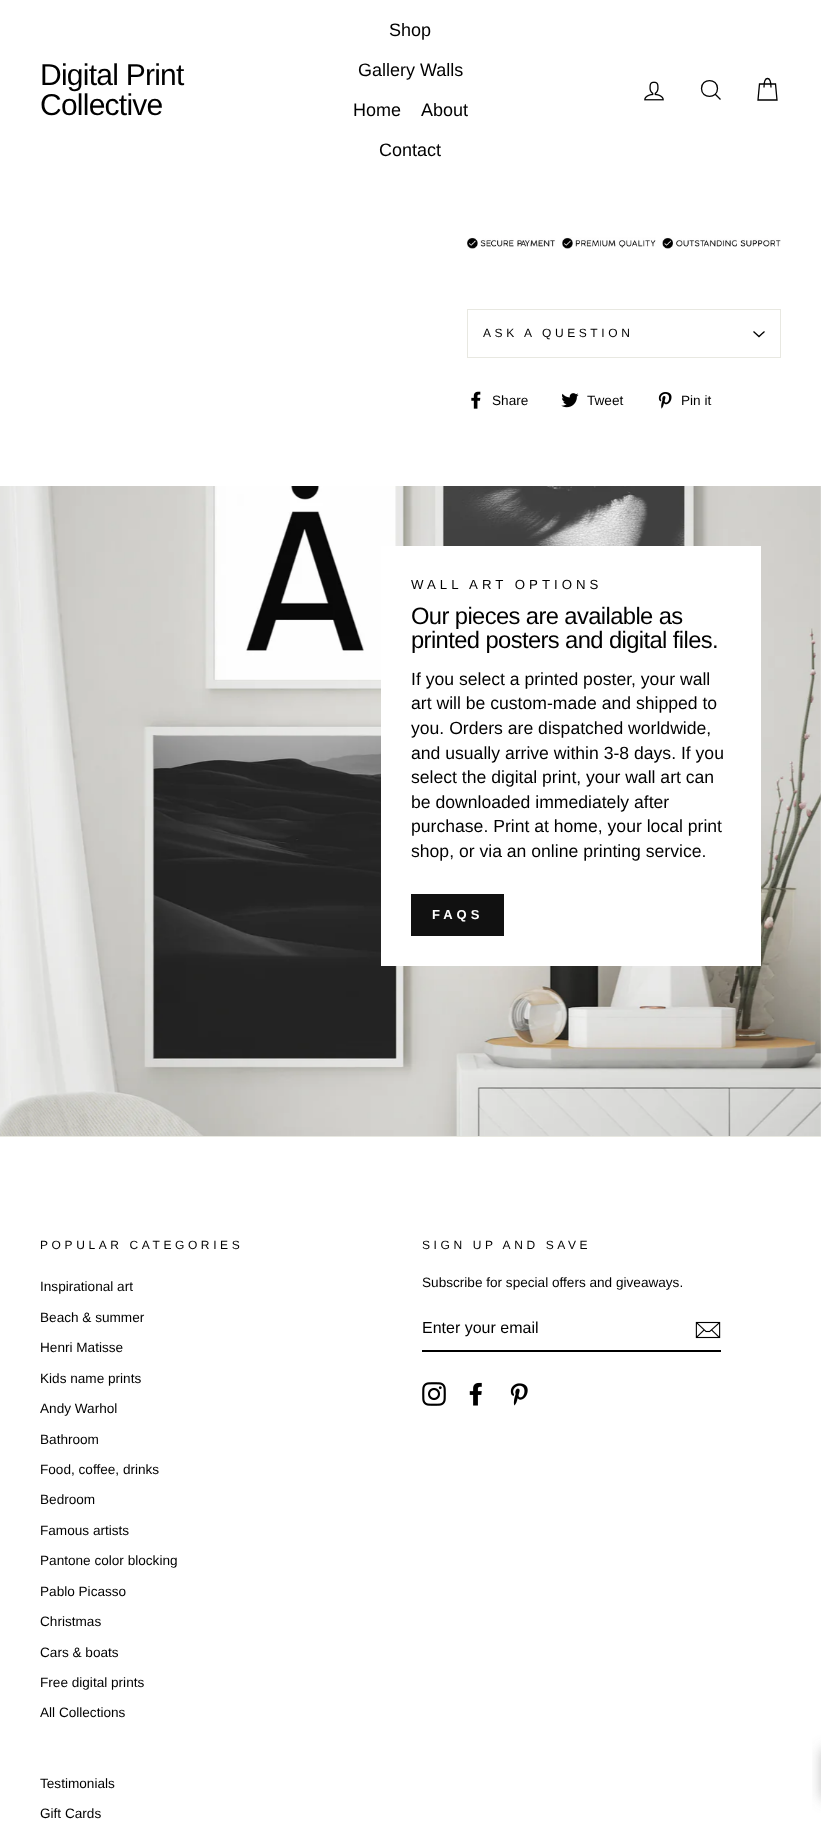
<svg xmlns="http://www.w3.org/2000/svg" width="821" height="1829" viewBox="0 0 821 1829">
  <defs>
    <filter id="blur1" x="-50%" y="-200%" width="200%" height="500%"><feGaussianBlur stdDeviation="0.5"/></filter>
    <filter id="blur2" x="-50%" y="-200%" width="200%" height="500%"><feGaussianBlur stdDeviation="7"/></filter>
  </defs>
  <rect width="100%" height="100%" fill="#ffffff"/>
  <rect x="0" y="0" width="821" height="181" fill="#000000" fill-opacity="0.2" filter="url(#blur1)"/>
  <rect x="0" y="0" width="821" height="181" fill="#ffffff"/>
  <text x="40" y="85" font-family="Arimo" font-size="30" letter-spacing="-0.75" fill="#000000">Digital Print</text>
  <text x="40" y="115" font-family="Arimo" font-size="30" letter-spacing="-0.75" fill="#000000">Collective</text>
  <text x="389" y="36" font-family="Liberation Sans" font-size="18" fill="#000000">Shop</text>
  <text x="358" y="76" font-family="Liberation Sans" font-size="18" fill="#000000">Gallery Walls</text>
  <text x="353" y="116" font-family="Liberation Sans" font-size="18" fill="#000000">Home</text>
  <text x="421" y="116" font-family="Liberation Sans" font-size="18" fill="#000000">About</text>
  <text x="379" y="156" font-family="Liberation Sans" font-size="18" fill="#000000">Contact</text>
  <image x="644" y="81" width="20" height="20" href="img1.png"/>
  <path d="M717.5 88.5C717.5 99 701.5 99 701.5 88.5C701.5 78 717.5 78 717.5 88.5ZM720.5 99.5L715.5 94.5" fill="none" stroke="#000000" stroke-width="1.3"/>
  <path d="M764 87.5C764 75.5 771 75.5 771 87.5M759.5 84H775.5L777 100H758Z" fill="none" stroke="#000000" stroke-width="1.3"/>
  <image x="467" y="237" width="314" height="12" href="img2.png"/>
  <rect x="467" y="357" width="314" height="1" fill="#e8e8e1"/>
  <rect x="467" y="309" width="314" height="1" fill="#e8e8e1"/>
  <rect x="780" y="309" width="1" height="48" fill="#e8e8e1"/>
  <rect x="467" y="309" width="1" height="48" fill="#e8e8e1"/>
  <text x="483" y="337" font-family="Liberation Sans" font-size="12" letter-spacing="3.6" fill="#000000">ASK A QUESTION</text>
  <path d="M753.5 331.5L759 336.5L764.5 331.5" fill="none" stroke="#000000" stroke-width="1.3"/>
  <image x="471" y="391" width="10" height="18" href="img3.png"/>
  <text x="492" y="405" font-family="Liberation Sans" font-size="13.6" fill="#000000">Share</text>
  <image x="561" y="393" width="18" height="15" href="img4.png"/>
  <text x="587" y="405" font-family="Liberation Sans" font-size="13.6" fill="#000000">Tweet</text>
  <image x="658" y="392" width="14" height="17" href="img5.png"/>
  <text x="681" y="405" font-family="Liberation Sans" font-size="13.6" fill="#000000">Pin it</text>
  <image x="0" y="486" width="821" height="650" href="img6.png"/>
  <rect x="381" y="546" width="380" height="420" fill="#ffffff"/>
  <text x="411" y="589" font-family="Liberation Sans" font-size="13.25" letter-spacing="4" fill="#000000">WALL ART OPTIONS</text>
  <text x="411" y="624" font-family="Arimo" font-size="23.75" letter-spacing="-0.6" fill="#000000">Our pieces are available as</text>
  <text x="411" y="648" font-family="Arimo" font-size="23.75" letter-spacing="-0.6" fill="#000000">printed posters and digital files.</text>
  <text x="411" y="685" font-family="Liberation Sans" font-size="17.6" fill="#000000">If you select a printed poster, your wall</text>
  <text x="411" y="709" font-family="Liberation Sans" font-size="17.6" fill="#000000">art will be custom-made and shipped to</text>
  <text x="411" y="734" font-family="Liberation Sans" font-size="17.6" fill="#000000">you. Orders are dispatched worldwide,</text>
  <text x="411" y="759" font-family="Liberation Sans" font-size="17.6" fill="#000000">and usually arrive within 3-8 days. If you</text>
  <text x="411" y="783" font-family="Liberation Sans" font-size="17.6" fill="#000000">select the digital print, your wall art can</text>
  <text x="411" y="808" font-family="Liberation Sans" font-size="17.6" fill="#000000">be downloaded immediately after</text>
  <text x="411" y="832" font-family="Liberation Sans" font-size="17.6" fill="#000000">purchase. Print at home, your local print</text>
  <text x="411" y="857" font-family="Liberation Sans" font-size="17.6" fill="#000000">shop, or via an online printing service.</text>
  <rect x="411" y="894" width="93" height="42" fill="#111111"/>
  <text x="432" y="919" font-family="Liberation Sans" font-size="13" font-weight="bold" letter-spacing="4" fill="#ffffff">FAQS</text>
  <rect x="0" y="1136" width="821" height="1" fill="#e8e8e1"/>
  <text x="40" y="1249" font-family="Liberation Sans" font-size="12" letter-spacing="3.6" fill="#000000">POPULAR CATEGORIES</text>
  <text x="40" y="1291" font-family="Liberation Sans" font-size="13.6" fill="#000000">Inspirational art</text>
  <text x="40" y="1322" font-family="Liberation Sans" font-size="13.6" fill="#000000">Beach &amp; summer</text>
  <text x="40" y="1352" font-family="Liberation Sans" font-size="13.6" fill="#000000">Henri Matisse</text>
  <text x="40" y="1383" font-family="Liberation Sans" font-size="13.6" fill="#000000">Kids name prints</text>
  <text x="40" y="1413" font-family="Liberation Sans" font-size="13.6" fill="#000000">Andy Warhol</text>
  <text x="40" y="1444" font-family="Liberation Sans" font-size="13.6" fill="#000000">Bathroom</text>
  <text x="40" y="1474" font-family="Liberation Sans" font-size="13.6" fill="#000000">Food, coffee, drinks</text>
  <text x="40" y="1504" font-family="Liberation Sans" font-size="13.6" fill="#000000">Bedroom</text>
  <text x="40" y="1535" font-family="Liberation Sans" font-size="13.6" fill="#000000">Famous artists</text>
  <text x="40" y="1565" font-family="Liberation Sans" font-size="13.6" fill="#000000">Pantone color blocking</text>
  <text x="40" y="1596" font-family="Liberation Sans" font-size="13.6" fill="#000000">Pablo Picasso</text>
  <text x="40" y="1626" font-family="Liberation Sans" font-size="13.6" fill="#000000">Christmas</text>
  <text x="40" y="1657" font-family="Liberation Sans" font-size="13.6" fill="#000000">Cars &amp; boats</text>
  <text x="40" y="1687" font-family="Liberation Sans" font-size="13.6" fill="#000000">Free digital prints</text>
  <text x="40" y="1717" font-family="Liberation Sans" font-size="13.6" fill="#000000">All Collections</text>
  <text x="422" y="1249" font-family="Liberation Sans" font-size="12" letter-spacing="3.6" fill="#000000">SIGN UP AND SAVE</text>
  <text x="422" y="1287" font-family="Liberation Sans" font-size="13.6" fill="#000000">Subscribe for special offers and giveaways.</text>
  <rect x="422" y="1350" width="299" height="2" fill="#000000"/>
  <text x="422" y="1333" font-family="Liberation Sans" font-size="16" fill="#000000">Enter your email</text>
  <image x="695" y="1321" width="26" height="18" href="img7.png"/>
  <image x="422" y="1382" width="24" height="24" href="img8.png"/>
  <image x="469" y="1382" width="13" height="24" href="img9.png"/>
  <image x="510" y="1383" width="18" height="23" href="img10.png"/>
  <text x="40" y="1788" font-family="Liberation Sans" font-size="13.6" fill="#000000">Testimonials</text>
  <text x="40" y="1818" font-family="Liberation Sans" font-size="13.6" fill="#000000">Gift Cards</text>
  <rect x="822" y="1749" width="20" height="50" fill="#757575" fill-opacity="0.5" filter="url(#blur2)"/>
</svg>
